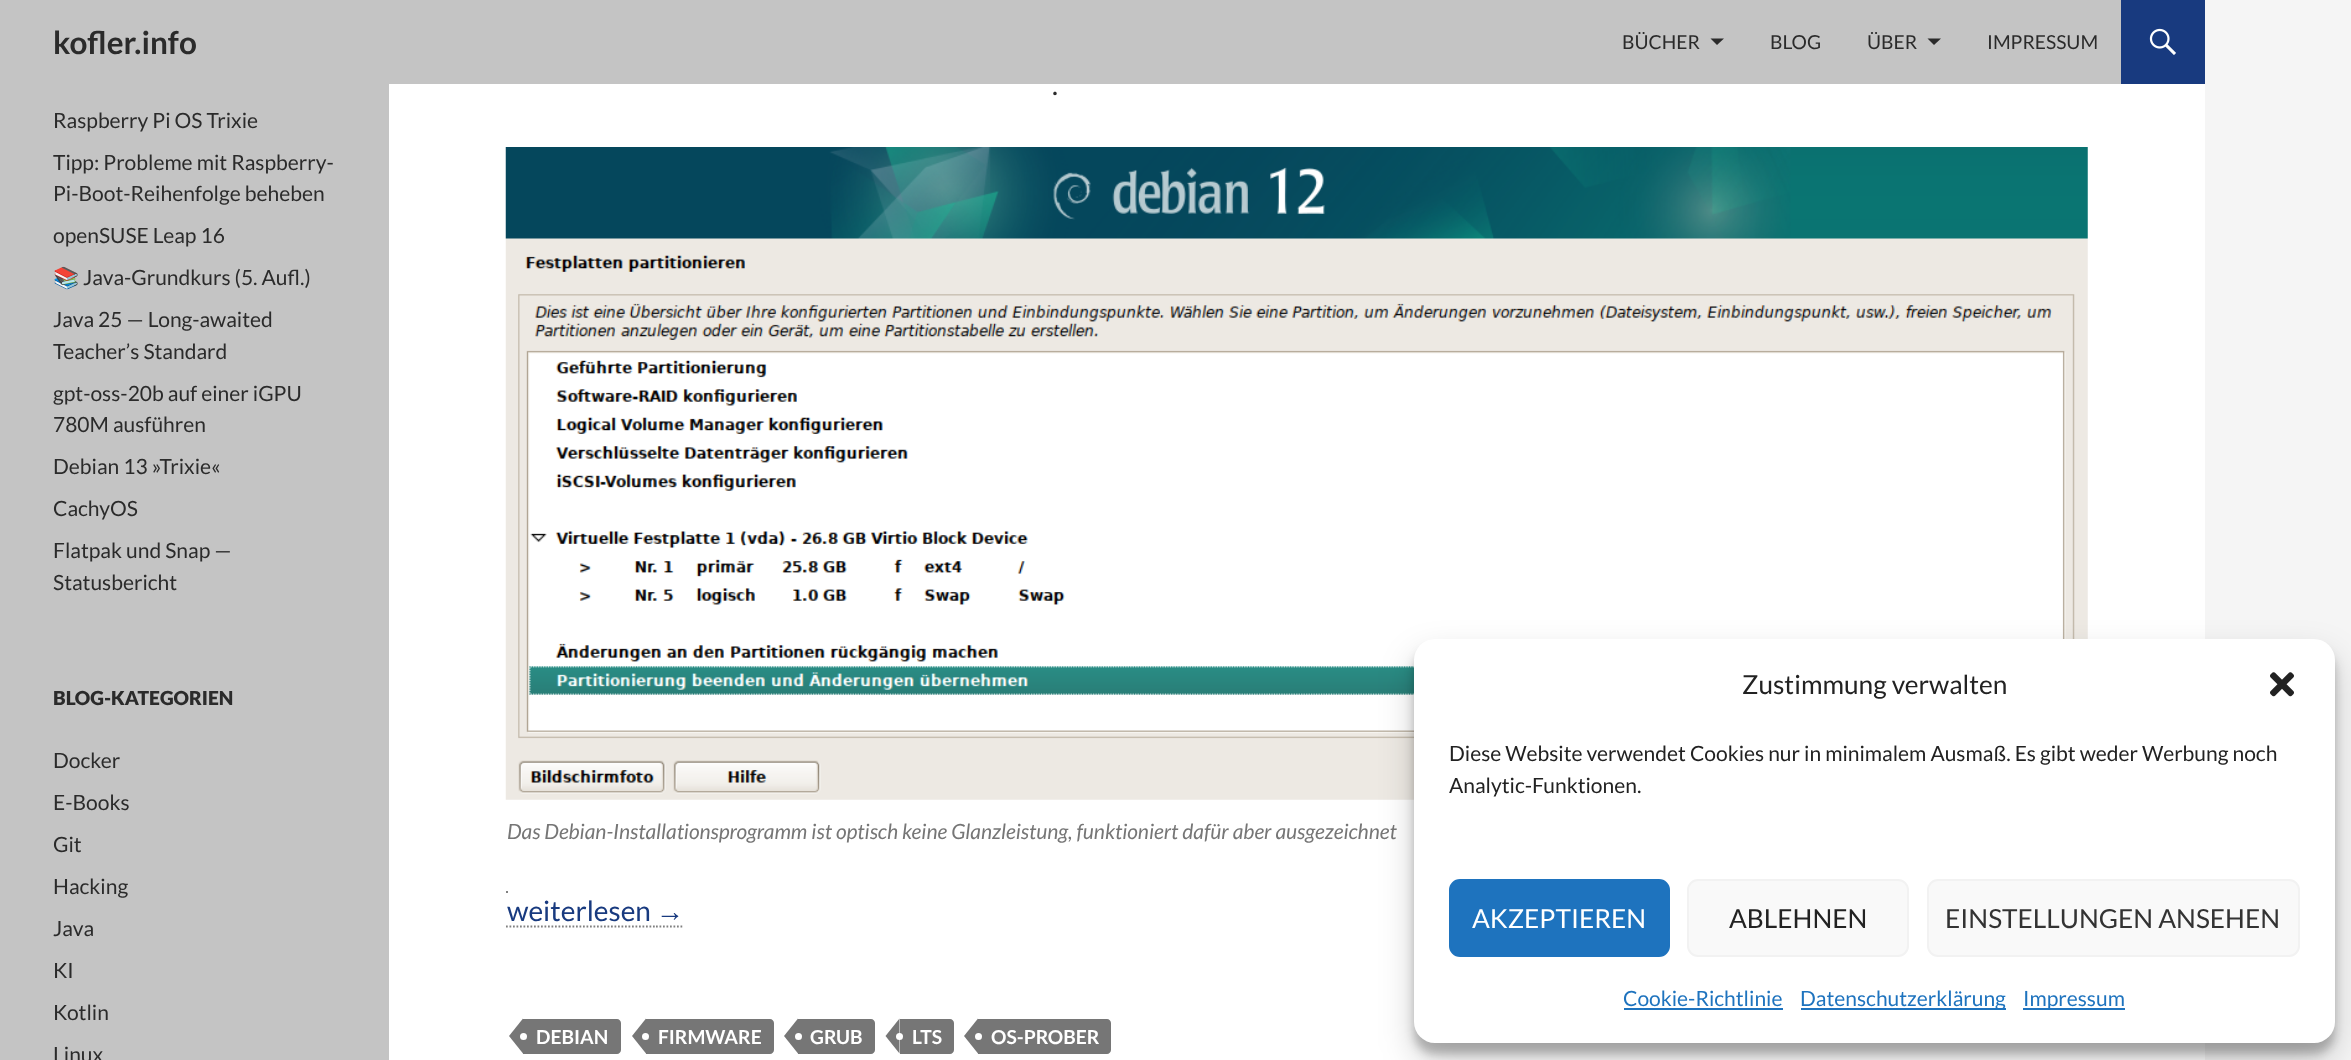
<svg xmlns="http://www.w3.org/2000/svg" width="2351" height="1060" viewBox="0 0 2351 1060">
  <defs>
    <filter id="blur1" x="-50%" y="-200%" width="200%" height="500%"><feGaussianBlur stdDeviation="5"/></filter>
    <filter id="blur2" x="-50%" y="-200%" width="200%" height="500%"><feGaussianBlur stdDeviation="17.5"/></filter>
  </defs>
  <rect width="100%" height="100%" fill="#f5f5f5"/>
  <rect x="389" y="84" width="1816" height="976" fill="#ffffff"/>
  <rect x="0" y="0" width="2121" height="84" fill="#c4c4c4"/>
  <text x="53" y="54" font-family="Lato" font-size="31.5" font-weight="bold" fill="#2b2b2b">kofler.info</text>
  <text x="1622" y="49" font-family="Lato" font-size="19.25" fill="#2b2b2b">BÜCHER</text>
  <path d="M1710.5 38.5H1724L1717 45Z" fill="#2b2b2b"/>
  <text x="1770" y="49" font-family="Lato" font-size="19.25" fill="#2b2b2b">BLOG</text>
  <text x="1867" y="49" font-family="Lato" font-size="19.25" fill="#2b2b2b">ÜBER</text>
  <path d="M1927.5 38.5H1941L1934 45Z" fill="#2b2b2b"/>
  <text x="1987" y="49" font-family="Lato" font-size="19.25" fill="#2b2b2b">IMPRESSUM</text>
  <rect x="2121" y="0" width="84" height="84" fill="#183a7f"/>
  <image x="2149" y="28" width="27" height="27" href="img1.png"/>
  <rect x="0" y="84" width="389" height="976" fill="#c4c4c4"/>
  <text x="53" y="128" font-family="Lato" font-size="21" fill="#2b2b2b">Raspberry Pi OS Trixie</text>
  <text x="53" y="170" font-family="Lato" font-size="21" fill="#2b2b2b">Tipp: Probleme mit Raspberry-</text>
  <text x="53" y="201" font-family="Lato" font-size="21" fill="#2b2b2b">Pi-Boot-Reihenfolge beheben</text>
  <text x="53" y="243" font-family="Lato" font-size="21" fill="#2b2b2b">openSUSE Leap 16</text>
  <text x="53" y="285" font-family="Noto Color Emoji" font-size="21" fill="#2b2b2b">📚</text>
  <text x="83" y="285" font-family="Lato" font-size="21" fill="#2b2b2b">Java-Grundkurs (5. Aufl.)</text>
  <text x="53" y="327" font-family="Lato" font-size="21" fill="#2b2b2b">Java 25 — Long-awaited</text>
  <text x="53" y="359" font-family="Lato" font-size="21" fill="#2b2b2b">Teacher’s Standard</text>
  <text x="53" y="401" font-family="Lato" font-size="21" fill="#2b2b2b">gpt-oss-20b auf einer iGPU</text>
  <text x="53" y="432" font-family="Lato" font-size="21" fill="#2b2b2b">780M ausführen</text>
  <text x="53" y="474" font-family="Lato" font-size="21" fill="#2b2b2b">Debian 13 »Trixie«</text>
  <text x="53" y="516" font-family="Lato" font-size="21" fill="#2b2b2b">CachyOS</text>
  <text x="53" y="558" font-family="Lato" font-size="21" fill="#2b2b2b">Flatpak und Snap —</text>
  <text x="53" y="590" font-family="Lato" font-size="21" fill="#2b2b2b">Statusbericht</text>
  <text x="53" y="705" font-family="Lato" font-size="19.25" font-weight="900" fill="#2b2b2b">BLOG-KATEGORIEN</text>
  <text x="53" y="768" font-family="Lato" font-size="21" fill="#2b2b2b">Docker</text>
  <text x="53" y="810" font-family="Lato" font-size="21" fill="#2b2b2b">E-Books</text>
  <text x="53" y="852" font-family="Lato" font-size="21" fill="#2b2b2b">Git</text>
  <text x="53" y="894" font-family="Lato" font-size="21" fill="#2b2b2b">Hacking</text>
  <text x="53" y="936" font-family="Lato" font-size="21" fill="#2b2b2b">Java</text>
  <text x="53" y="978" font-family="Lato" font-size="21" fill="#2b2b2b">KI</text>
  <text x="53" y="1020" font-family="Lato" font-size="21" fill="#2b2b2b">Kotlin</text>
  <text x="53" y="1062" font-family="Lato" font-size="21" fill="#2b2b2b">Linux</text>
  <text x="1052" y="95" font-family="Lato" font-size="28" fill="#2b2b2b">.</text>
  <image x="505" y="147" width="1583" height="653" href="img2.png"/>
  <text x="507" y="839" font-family="Lato" font-size="21" font-style="italic" fill="#767676">Das Debian-Installationsprogramm ist optisch keine Glanzleistung, funktioniert dafür aber ausgezeichnet</text>
  <text x="507" y="921" font-family="Lato" font-size="28" fill="#183a7f">weiterlesen</text>
  <rect x="506" y="891" width="2" height="2" fill="#808080"/>
  <text x="656" y="921" font-family="Liberation Sans" font-size="28" fill="#183a7f">→</text>
  <path d="M506 926.5H656" fill="none" stroke="#808080" stroke-width="1.8" stroke-dasharray="1.75 1.75"/>
  <path d="M656 926.5H684" fill="none" stroke="#808080" stroke-width="1.8" stroke-dasharray="1.75 1.75"/>
  <path d="M523 1019H617C619 1019 621 1021 621 1023V1050C621 1052 619 1054 617 1054H523Z" fill="#767676"/>
  <path d="M523 1018.5V1053.5L509 1036Z" fill="#767676"/>
  <circle cx="523.5" cy="1036.5" r="3.5" fill="#ffffff"/>
  <text x="536" y="1044" font-family="Lato" font-size="19.25" font-weight="bold" fill="#ffffff">DEBIAN</text>
  <path d="M646 1019H770C772 1019 774 1021 774 1023V1050C774 1052 772 1054 770 1054H646Z" fill="#767676"/>
  <path d="M646 1018.5V1053.5L632 1036Z" fill="#767676"/>
  <text x="658" y="1044" font-family="Lato" font-size="19.25" font-weight="bold" fill="#ffffff">FIRMWARE</text>
  <circle cx="645.5" cy="1036.5" r="3.5" fill="#ffffff"/>
  <path d="M798 1019H871C873 1019 875 1021 875 1023V1050C875 1052 873 1054 871 1054H798Z" fill="#767676"/>
  <path d="M798 1018.5V1053.5L784 1036Z" fill="#767676"/>
  <circle cx="798.5" cy="1036.5" r="3.5" fill="#ffffff"/>
  <text x="810" y="1044" font-family="Lato" font-size="19.25" font-weight="bold" fill="#ffffff">GRUB</text>
  <path d="M900 1019H950C952 1019 954 1021 954 1023V1050C954 1052 952 1054 950 1054H900Z" fill="#767676"/>
  <path d="M899.5 1018.5V1053.5L885.5 1036Z" fill="#767676"/>
  <text x="912" y="1044" font-family="Lato" font-size="19.25" font-weight="bold" fill="#ffffff">LTS</text>
  <circle cx="899.5" cy="1036.5" r="3.5" fill="#ffffff"/>
  <path d="M978 1019H1107C1109 1019 1111 1021 1111 1023V1050C1111 1052 1109 1054 1107 1054H978Z" fill="#767676"/>
  <path d="M978 1018.5V1053.5L964 1036Z" fill="#767676"/>
  <circle cx="978.5" cy="1036.5" r="3.5" fill="#ffffff"/>
  <text x="991" y="1044" font-family="Lato" font-size="19.25" font-weight="bold" fill="#ffffff">OS-PROBER</text>
  <rect x="1414" y="649" width="921" height="405" rx="21" fill="#000000" fill-opacity="0.23" filter="url(#blur1)"/>
  <rect x="1414" y="656" width="921" height="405" rx="21" fill="#000000" fill-opacity="0.19" filter="url(#blur2)"/>
  <rect x="1414" y="639" width="921" height="404" rx="21" fill="#ffffff"/>
  <text x="1742" y="694" font-family="Lato" font-size="26.25" fill="#222222">Zustimmung verwalten</text>
  <image x="2270" y="672" width="24" height="25" href="img3.png"/>
  <text x="1449" y="761" font-family="Lato" font-size="21" fill="#222222">Diese Website verwendet Cookies nur in minimalem Ausmaß. Es gibt weder Werbung noch</text>
  <text x="1449" y="793" font-family="Lato" font-size="21" fill="#222222">Analytic-Funktionen.</text>
  <rect x="1450" y="880" width="219" height="76" rx="10" fill="#1e73be" stroke="#1e73be" stroke-width="2"/>
  <text x="1472" y="928" font-family="Lato" font-size="26.25" fill="#ffffff">AKZEPTIEREN</text>
  <rect x="1688" y="880" width="220" height="76" rx="10" fill="#f9f9f9" stroke="#f2f2f2" stroke-width="2"/>
  <text x="1729" y="928" font-family="Lato" font-size="26.25" fill="#222222">ABLEHNEN</text>
  <rect x="1928" y="880" width="371" height="76" rx="10" fill="#f9f9f9" stroke="#f2f2f2" stroke-width="2"/>
  <text x="1945" y="928" font-family="Lato" font-size="26.25" fill="#333333">EINSTELLUNGEN ANSEHEN</text>
  <text x="1623" y="1006" font-family="Lato" font-size="21" fill="#1e73be">Cookie-Richtlinie</text>
  <rect x="1624" y="1008" width="159" height="2" fill="#1e73be"/>
  <rect x="1801" y="1008" width="205" height="2" fill="#1e73be"/>
  <text x="1800" y="1006" font-family="Lato" font-size="21" fill="#1e73be">Datenschutzerklärung</text>
  <rect x="2023" y="1008" width="102" height="2" fill="#1e73be"/>
  <text x="2023" y="1006" font-family="Lato" font-size="21" fill="#1e73be">Impressum</text>
</svg>
